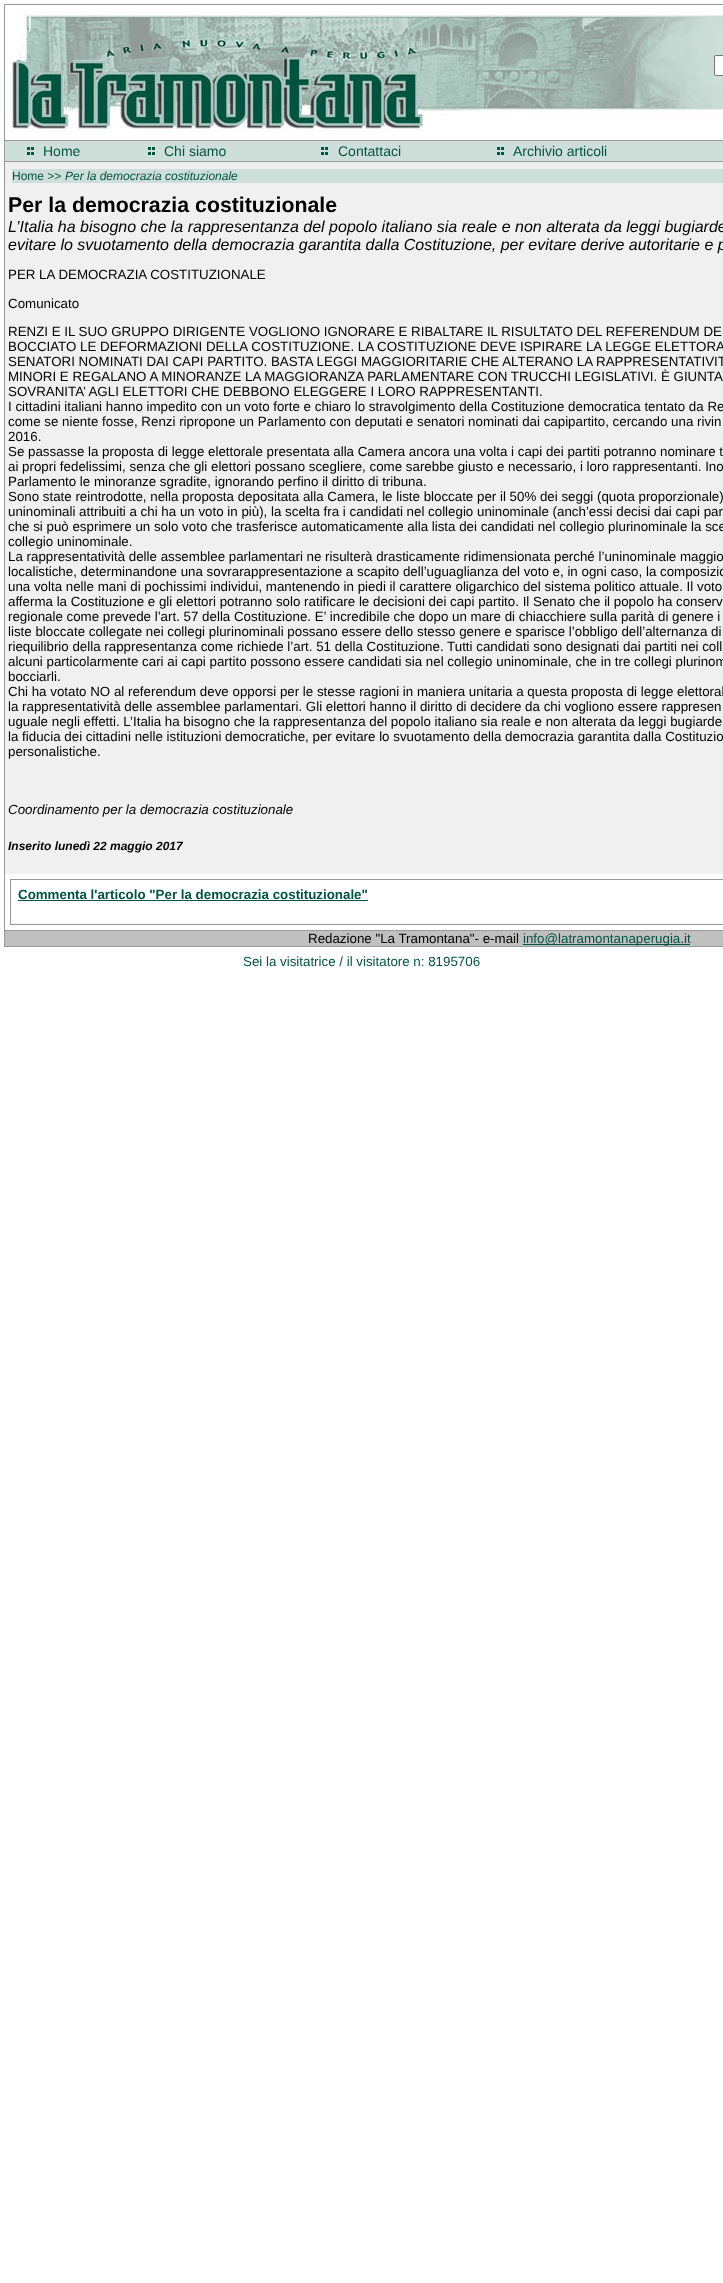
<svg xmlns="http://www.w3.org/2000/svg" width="723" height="2283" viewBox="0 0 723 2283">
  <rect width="100%" height="100%" fill="#ffffff"/>
  <rect x="4" y="4" width="719" height="1" fill="#999999"/>
  <rect x="4" y="946" width="719" height="1" fill="#999999"/>
  <rect x="4" y="4" width="1" height="943" fill="#999999"/>
  <image x="6" y="13" width="717" height="120" href="img1.png"/>
  <rect x="714.5" y="55.5" width="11" height="20" rx="1.5" fill="#ffffff" stroke="#767676"/>
  <rect x="5" y="141" width="718" height="20" fill="#ceded8"/>
  <rect x="5" y="140" width="718" height="1" fill="#999999"/>
  <rect x="5" y="161" width="718" height="1" fill="#999999"/>
  <image x="27" y="147" width="7" height="8" href="img2.png"/>
  <text x="43" y="156" font-family="Liberation Sans" font-size="14" fill="#005440">Home</text>
  <image x="148" y="147" width="7" height="8" href="img2.png"/>
  <text x="164" y="156" font-family="Liberation Sans" font-size="14" fill="#005440">Chi siamo</text>
  <image x="321" y="147" width="7" height="8" href="img2.png"/>
  <text x="338" y="156" font-family="Liberation Sans" font-size="14" fill="#005440">Contattaci</text>
  <image x="497" y="147" width="7" height="8" href="img2.png"/>
  <text x="513" y="156" font-family="Liberation Sans" font-size="14" fill="#005440">Archivio articoli</text>
  <rect x="5" y="162" width="718" height="712" fill="#f0f0f0"/>
  <rect x="12" y="169" width="711" height="14" fill="#ceded8"/>
  <text x="12" y="180" font-family="Liberation Sans" font-size="12" fill="#005440">Home &gt;&gt;</text>
  <text x="65" y="180" font-family="Liberation Sans" font-size="12" font-style="italic" fill="#005440">Per la democrazia costituzionale</text>
  <text x="8" y="212" font-family="Liberation Sans" font-size="21.3" font-weight="bold" fill="#000000">Per la democrazia costituzionale</text>
  <text x="8" y="232" font-family="Liberation Sans" font-size="16" font-style="italic" fill="#000000">L’Italia ha bisogno che la rappresentanza del popolo italiano sia reale e non alterata da leggi bugiarde</text>
  <text x="8" y="250" font-family="Liberation Sans" font-size="16" font-style="italic" fill="#000000">evitare lo svuotamento della democrazia garantita dalla Costituzione, per evitare derive autoritarie e p</text>
  <text x="8" y="279" font-family="Liberation Sans" font-size="13.33" fill="#000000">PER LA DEMOCRAZIA COSTITUZIONALE</text>
  <text x="8" y="308" font-family="Liberation Sans" font-size="13.33" fill="#000000">Comunicato</text>
  <text x="8" y="336" font-family="Liberation Sans" font-size="13.33" fill="#000000">RENZI E IL SUO GRUPPO DIRIGENTE VOGLIONO IGNORARE E RIBALTARE IL RISULTATO DEL REFERENDUM DE</text>
  <text x="8" y="351" font-family="Liberation Sans" font-size="13.33" fill="#000000">BOCCIATO LE DEFORMAZIONI DELLA COSTITUZIONE. LA COSTITUZIONE DEVE ISPIRARE LA LEGGE ELETTORA</text>
  <text x="8" y="366" font-family="Liberation Sans" font-size="13.33" fill="#000000">SENATORI NOMINATI DAI CAPI PARTITO. BASTA LEGGI MAGGIORITARIE CHE ALTERANO LA RAPPRESENTATIVIT</text>
  <text x="8" y="381" font-family="Liberation Sans" font-size="13.33" fill="#000000">MINORI E REGALANO A MINORANZE LA MAGGIORANZA PARLAMENTARE CON TRUCCHI LEGISLATIVI. È GIUNTA</text>
  <text x="8" y="396" font-family="Liberation Sans" font-size="13.33" fill="#000000">SOVRANITA’ AGLI ELETTORI CHE DEBBONO ELEGGERE I LORO RAPPRESENTANTI.</text>
  <text x="8" y="411" font-family="Liberation Sans" font-size="13.33" fill="#000000">I cittadini italiani hanno impedito con un voto forte e chiaro lo stravolgimento della Costituzione democratica tentato da Re</text>
  <text x="8" y="426" font-family="Liberation Sans" font-size="13.33" fill="#000000">come se niente fosse, Renzi ripropone un Parlamento con deputati e senatori nominati dai capipartito, cercando una rivin</text>
  <text x="8" y="441" font-family="Liberation Sans" font-size="13.33" fill="#000000">2016.</text>
  <text x="8" y="456" font-family="Liberation Sans" font-size="13.33" fill="#000000">Se passasse la proposta di legge elettorale presentata alla Camera ancora una volta i capi dei partiti potranno nominare t</text>
  <text x="8" y="471" font-family="Liberation Sans" font-size="13.33" fill="#000000">ai propri fedelissimi, senza che gli elettori possano scegliere, come sarebbe giusto e necessario, i loro rappresentanti. Ino</text>
  <text x="8" y="486" font-family="Liberation Sans" font-size="13.33" fill="#000000">Parlamento le minoranze sgradite, ignorando perfino il diritto di tribuna.</text>
  <text x="8" y="501" font-family="Liberation Sans" font-size="13.33" fill="#000000">Sono state reintrodotte, nella proposta depositata alla Camera, le liste bloccate per il 50% dei seggi (quota proporzionale)</text>
  <text x="8" y="516" font-family="Liberation Sans" font-size="13.33" fill="#000000">uninominali attribuiti a chi ha un voto in più), la scelta fra i candidati nel collegio uninominale (anch’essi decisi dai capi par</text>
  <text x="8" y="531" font-family="Liberation Sans" font-size="13.33" fill="#000000">che si può esprimere un solo voto che trasferisce automaticamente alla lista dei candidati nel collegio plurinominale la sce</text>
  <text x="8" y="546" font-family="Liberation Sans" font-size="13.33" fill="#000000">collegio uninominale.</text>
  <text x="8" y="561" font-family="Liberation Sans" font-size="13.33" fill="#000000">La rappresentatività delle assemblee parlamentari ne risulterà drasticamente ridimensionata perché l’uninominale maggio</text>
  <text x="8" y="576" font-family="Liberation Sans" font-size="13.33" fill="#000000">localistiche, determinandone una sovrarappresentazione a scapito dell’uguaglianza del voto e, in ogni caso, la composizio</text>
  <text x="8" y="591" font-family="Liberation Sans" font-size="13.33" fill="#000000">una volta nelle mani di pochissimi individui, mantenendo in piedi il carattere oligarchico del sistema politico attuale. Il voto</text>
  <text x="8" y="606" font-family="Liberation Sans" font-size="13.33" fill="#000000">afferma la Costituzione e gli elettori potranno solo ratificare le decisioni dei capi partito. Il Senato che il popolo ha conserv</text>
  <text x="8" y="621" font-family="Liberation Sans" font-size="13.33" fill="#000000">regionale come prevede l’art. 57 della Costituzione. E’ incredibile che dopo un mare di chiacchiere sulla parità di genere i</text>
  <text x="8" y="636" font-family="Liberation Sans" font-size="13.33" fill="#000000">liste bloccate collegate nei collegi plurinominali possano essere dello stesso genere e sparisce l’obbligo dell’alternanza di</text>
  <text x="8" y="651" font-family="Liberation Sans" font-size="13.33" fill="#000000">riequilibrio della rappresentanza come richiede l’art. 51 della Costituzione. Tutti candidati sono designati dai partiti nei coll</text>
  <text x="8" y="666" font-family="Liberation Sans" font-size="13.33" fill="#000000">alcuni particolarmente cari ai capi partito possono essere candidati sia nel collegio uninominale, che in tre collegi plurinom</text>
  <text x="8" y="681" font-family="Liberation Sans" font-size="13.33" fill="#000000">bocciarli.</text>
  <text x="8" y="696" font-family="Liberation Sans" font-size="13.33" fill="#000000">Chi ha votato NO al referendum deve opporsi per le stesse ragioni in maniera unitaria a questa proposta di legge elettoral</text>
  <text x="8" y="711" font-family="Liberation Sans" font-size="13.33" fill="#000000">la rappresentatività delle assemblee parlamentari. Gli elettori hanno il diritto di decidere da chi vogliono essere rappresen</text>
  <text x="8" y="726" font-family="Liberation Sans" font-size="13.33" fill="#000000">uguale negli effetti. L’Italia ha bisogno che la rappresentanza del popolo italiano sia reale e non alterata da leggi bugiarde</text>
  <text x="8" y="741" font-family="Liberation Sans" font-size="13.33" fill="#000000">la fiducia dei cittadini nelle istituzioni democratiche, per evitare lo svuotamento della democrazia garantita dalla Costituzio</text>
  <text x="8" y="756" font-family="Liberation Sans" font-size="13.33" fill="#000000">personalistiche.</text>
  <text x="8" y="814" font-family="Liberation Sans" font-size="13.33" font-style="italic" fill="#000000">Coordinamento per la democrazia costituzionale</text>
  <text x="8" y="850" font-family="Liberation Sans" font-size="12" font-weight="bold" font-style="italic" fill="#000000">Inserito lunedì 22 maggio 2017</text>
  <rect x="10.5" y="879.5" width="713" height="45" fill="none" stroke="#999999"/>
  <text x="18" y="899" font-family="Liberation Sans" font-size="13.33" font-weight="bold" fill="#005440">Commenta l'articolo "Per la democrazia costituzionale"</text>
  <rect x="18" y="900" width="350" height="1" fill="#005440"/>
  <rect x="5" y="931" width="718" height="15" fill="#c0c0c0"/>
  <rect x="5" y="930" width="718" height="1" fill="#999999"/>
  <text x="308" y="943" font-family="Liberation Sans" font-size="13.33" fill="#000000">Redazione "La Tramontana"- e-mail</text>
  <rect x="523" y="944" width="167" height="1" fill="#005440"/>
  <text x="523" y="943" font-family="Liberation Sans" font-size="13.33" fill="#005440">info@latramontanaperugia.it</text>
  <text x="243" y="966" font-family="Liberation Sans" font-size="13.33" fill="#005440">Sei la visitatrice / il visitatore n: 8195706</text>
</svg>
